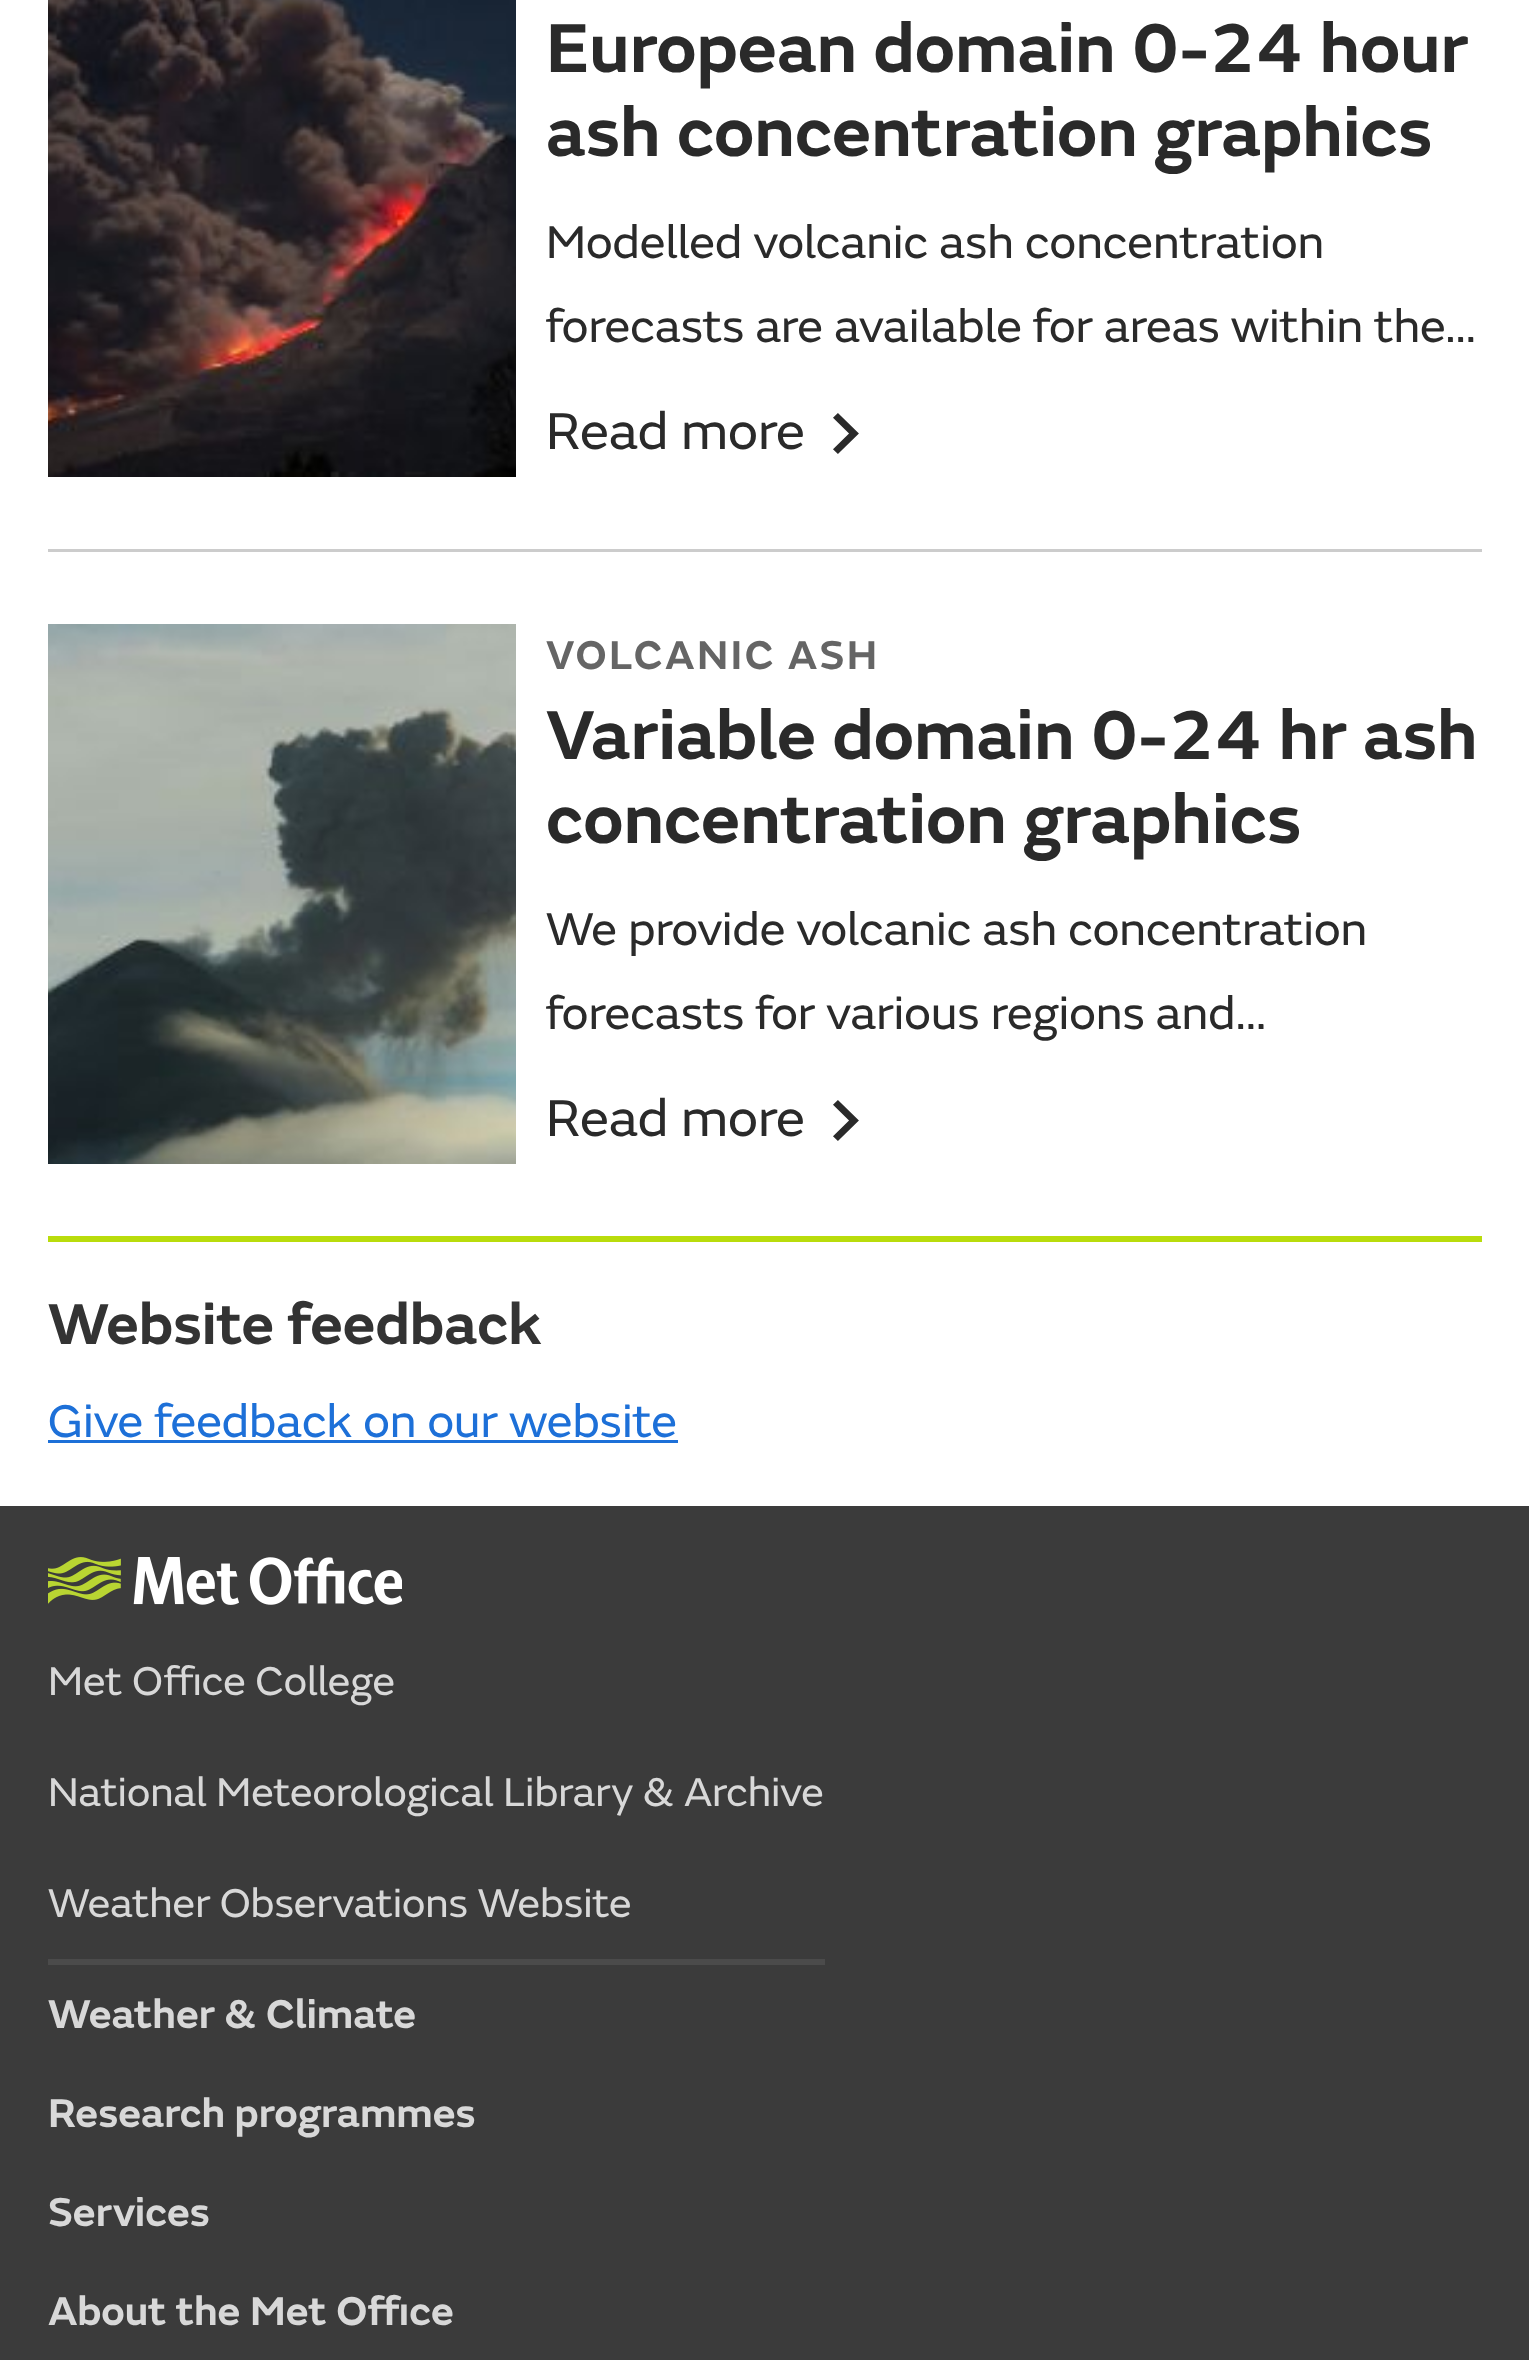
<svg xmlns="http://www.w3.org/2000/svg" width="1529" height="2360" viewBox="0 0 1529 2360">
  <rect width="100%" height="100%" fill="#ffffff"/>
  <image x="48" y="0" width="468" height="477" href="img1.png"/>
  <text x="546" y="72" font-family="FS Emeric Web" font-size="72" font-weight="600" fill="#2a2a2a">European domain 0-24 hour</text>
  <text x="546" y="156" font-family="FS Emeric Web" font-size="72" font-weight="600" fill="#2a2a2a">ash concentration graphics</text>
  <text x="546" y="258" font-family="FS Emeric Web" font-size="48" fill="#2a2a2a">Modelled volcanic ash concentration</text>
  <text x="546" y="342" font-family="FS Emeric Web" font-size="48" fill="#2a2a2a">forecasts are available for areas within the…</text>
  <text x="546" y="449" font-family="FS Emeric Web" font-size="54" fill="#2a2a2a">Read more</text>
  <image x="833" y="413" width="26" height="41" href="img2.png"/>
  <rect x="48" y="549" width="1434" height="3" fill="#cccccc"/>
  <image x="48" y="624" width="468" height="540" href="img3.png"/>
  <text x="546" y="669" font-family="FS Emeric Web" font-size="42" font-weight="600" letter-spacing="2.4" fill="#656565">VOLCANIC ASH</text>
  <text x="546" y="759" font-family="FS Emeric Web" font-size="72" font-weight="600" fill="#2a2a2a">Variable domain 0-24 hr ash</text>
  <text x="546" y="843" font-family="FS Emeric Web" font-size="72" font-weight="600" fill="#2a2a2a">concentration graphics</text>
  <text x="546" y="945" font-family="FS Emeric Web" font-size="48" fill="#2a2a2a">We provide volcanic ash concentration</text>
  <text x="546" y="1029" font-family="FS Emeric Web" font-size="48" fill="#2a2a2a">forecasts for various regions and…</text>
  <text x="546" y="1136" font-family="FS Emeric Web" font-size="54" fill="#2a2a2a">Read more</text>
  <image x="833" y="1100" width="26" height="41" href="img2.png"/>
  <rect x="48" y="1236" width="1434" height="6" fill="#b9dc0c"/>
  <text x="48" y="1344" font-family="FS Emeric Web" font-size="60" font-weight="600" fill="#333333">Website feedback</text>
  <text x="48" y="1437" font-family="FS Emeric Web" font-size="48" fill="#1d70d8">Give feedback on our website</text>
  <rect x="48" y="1440" width="630" height="3" fill="#1d70d8"/>
  <rect x="0" y="1506" width="1529" height="854" fill="#3b3b3b"/>
  <image x="48" y="1557" width="354" height="48" href="img4.png"/>
  <text x="48" y="1695" font-family="FS Emeric Web" font-size="42" fill="#d8d8d8">Met Office College</text>
  <text x="48" y="1806" font-family="FS Emeric Web" font-size="42" fill="#d8d8d8">National Meteorological Library &amp; Archive</text>
  <text x="48" y="1917" font-family="FS Emeric Web" font-size="42" fill="#d8d8d8">Weather Observations Website</text>
  <rect x="48" y="1959" width="777" height="6" fill="#4b4b4b"/>
  <text x="48" y="2028" font-family="FS Emeric Web" font-size="42" font-weight="600" fill="#d8d8d8">Weather &amp; Climate</text>
  <text x="48" y="2127" font-family="FS Emeric Web" font-size="42" font-weight="600" fill="#d8d8d8">Research programmes</text>
  <text x="48" y="2226" font-family="FS Emeric Web" font-size="42" font-weight="600" fill="#d8d8d8">Services</text>
  <text x="48" y="2325" font-family="FS Emeric Web" font-size="42" font-weight="600" fill="#d8d8d8">About the Met Office</text>
</svg>
